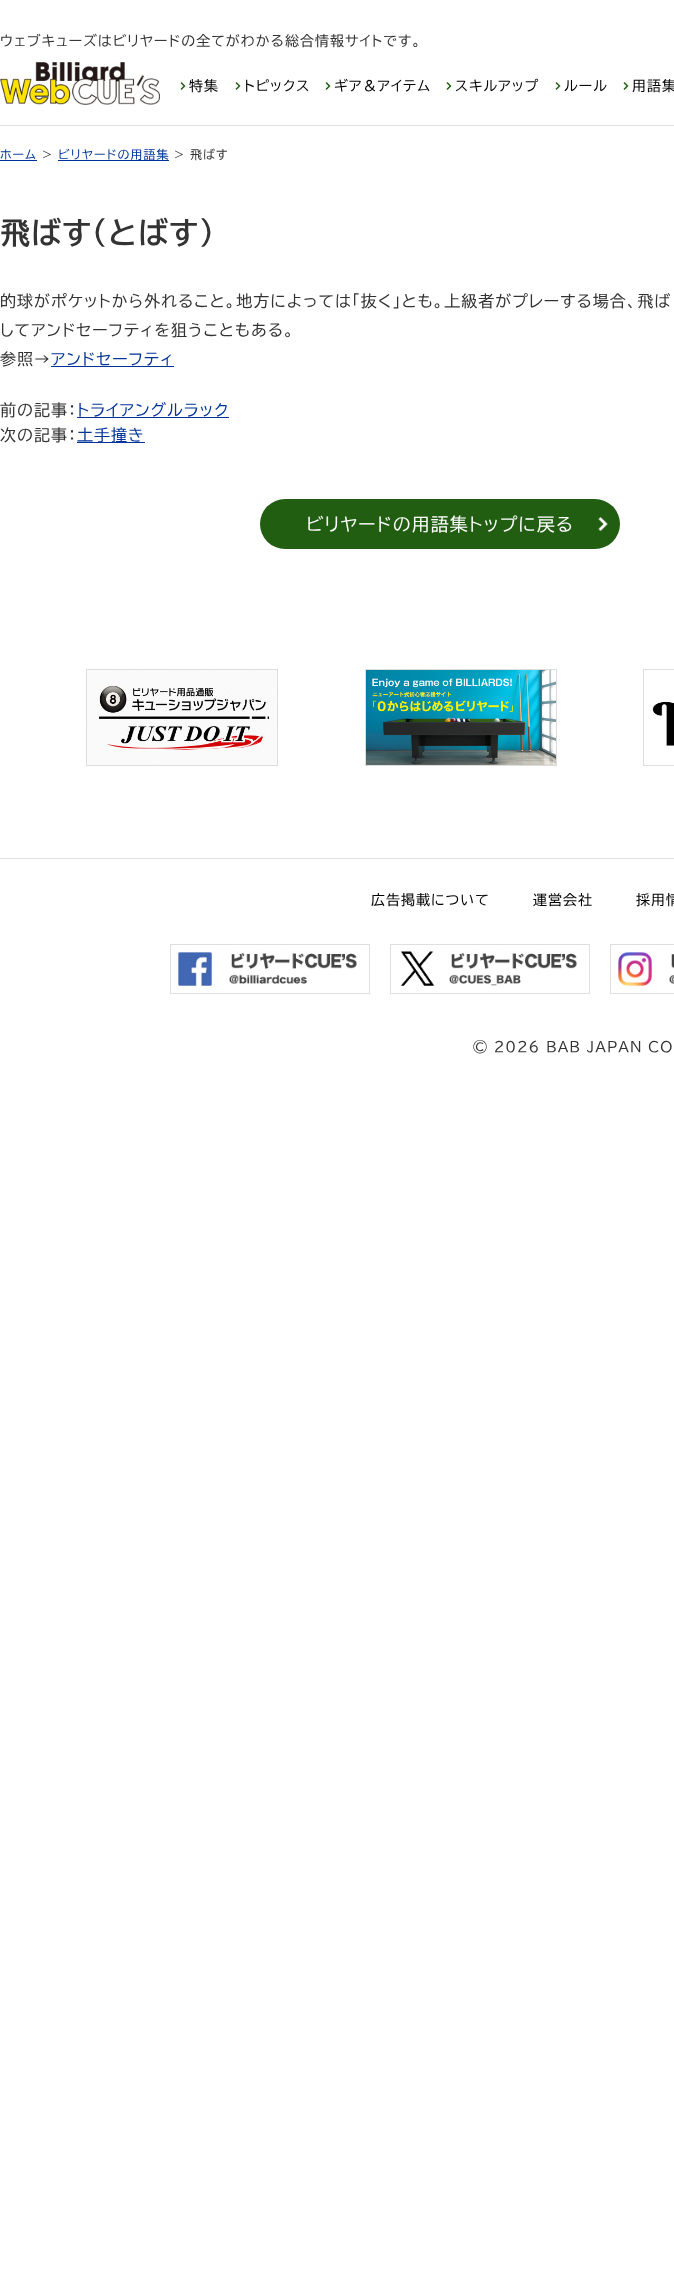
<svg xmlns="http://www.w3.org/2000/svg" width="674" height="2279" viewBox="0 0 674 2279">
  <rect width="100%" height="100%" fill="#ffffff"/>
  <rect x="0" y="125" width="674" height="1" fill="#dddddd"/>
  <text x="0" y="46" font-family="BIZ UDPGothic" font-size="14" letter-spacing="1" fill="#333333">ウェブキューズはビリヤードの全てがわかる総合情報サイトです。</text>
  <image x="0" y="62" width="160" height="43" href="img1.png"/>
  <image x="180" y="82" width="6" height="8" href="img2.png"/>
  <text x="189" y="91" font-family="BIZ UDPGothic" font-size="14" letter-spacing="1" fill="#000000">特集</text>
  <image x="235" y="82" width="6" height="8" href="img2.png"/>
  <text x="244" y="91" font-family="BIZ UDPGothic" font-size="14" letter-spacing="1" fill="#000000">トピックス</text>
  <image x="325" y="82" width="6" height="8" href="img2.png"/>
  <text x="334" y="91" font-family="BIZ UDPGothic" font-size="14" letter-spacing="1" fill="#000000">ギア＆アイテム</text>
  <image x="446" y="82" width="6" height="8" href="img2.png"/>
  <text x="455" y="91" font-family="BIZ UDPGothic" font-size="14" letter-spacing="1" fill="#000000">スキルアップ</text>
  <image x="555" y="82" width="6" height="8" href="img2.png"/>
  <text x="564" y="91" font-family="BIZ UDPGothic" font-size="14" letter-spacing="1" fill="#000000">ルール</text>
  <image x="623" y="82" width="6" height="8" href="img2.png"/>
  <text x="632" y="91" font-family="BIZ UDPGothic" font-size="14" letter-spacing="1" fill="#000000">用語集</text>
  <text x="0" y="159" font-family="BIZ UDPGothic" font-size="12" letter-spacing="1" fill="#003399">ホーム</text>
  <rect x="0" y="160" width="37" height="1" fill="#003399"/>
  <text x="42" y="159" font-family="BIZ UDPGothic" font-size="12" letter-spacing="1" fill="#333333">&gt;</text>
  <rect x="58" y="160" width="111" height="1" fill="#003399"/>
  <text x="58" y="159" font-family="BIZ UDPGothic" font-size="12" letter-spacing="1" fill="#003399">ビリヤードの用語集</text>
  <text x="174" y="159" font-family="BIZ UDPGothic" font-size="12" letter-spacing="1" fill="#333333">&gt; 飛ばす</text>
  <text x="0" y="244" font-family="BIZ UDPGothic" font-size="30" font-weight="bold" letter-spacing="1" fill="#333333">飛ばす（とばす）</text>
  <text x="0" y="307" font-family="BIZ UDPGothic" font-size="16" letter-spacing="1" fill="#333333">的球がポケットから外れること。地方によっては「抜く」とも。上級者がプレーする場合、飛ば</text>
  <text x="0" y="336" font-family="BIZ UDPGothic" font-size="16" letter-spacing="1" fill="#333333">してアンドセーフティを狙うこともある。</text>
  <text x="0" y="365" font-family="BIZ UDPGothic" font-size="16" letter-spacing="1" fill="#333333">参照→</text>
  <text x="51" y="365" font-family="BIZ UDPGothic" font-size="16" letter-spacing="1" fill="#003399">アンドセーフティ</text>
  <rect x="51" y="366" width="123" height="1" fill="#003399"/>
  <text x="0" y="416" font-family="BIZ UDPGothic" font-size="16" letter-spacing="1" fill="#333333">前の記事：</text>
  <text x="77" y="416" font-family="BIZ UDPGothic" font-size="16" letter-spacing="1" fill="#003399">トライアングルラック</text>
  <rect x="77" y="417" width="152" height="1" fill="#003399"/>
  <text x="0" y="441" font-family="BIZ UDPGothic" font-size="16" letter-spacing="1" fill="#333333">次の記事：</text>
  <rect x="77" y="442" width="68" height="1" fill="#003399"/>
  <text x="77" y="441" font-family="BIZ UDPGothic" font-size="16" letter-spacing="1" fill="#003399">土手撞き</text>
  <rect x="260" y="499" width="360" height="50" rx="25" fill="#215e11"/>
  <image x="598" y="517" width="10" height="14" href="img3.png"/>
  <text x="306" y="531" font-family="BIZ UDPGothic" font-size="18" letter-spacing="1" fill="#ffffff">ビリヤードの用語集トップに戻る</text>
  <rect x="86.5" y="669.5" width="191" height="96" fill="none" stroke="#dddddd"/>
  <image x="87" y="670" width="190" height="95" href="img4.png"/>
  <rect x="365.5" y="669.5" width="191" height="96" fill="none" stroke="#dddddd"/>
  <image x="366" y="670" width="190" height="95" href="img5.png"/>
  <rect x="643.5" y="669.5" width="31" height="96" fill="none" stroke="#dddddd"/>
  <image x="652" y="701" width="22" height="45" href="img6.png"/>
  <rect x="0" y="858" width="674" height="1" fill="#dddddd"/>
  <text x="371" y="905" font-family="BIZ UDPGothic" font-size="14" letter-spacing="1" fill="#000000">広告掲載について</text>
  <text x="533" y="905" font-family="BIZ UDPGothic" font-size="14" letter-spacing="1" fill="#000000">運営会社</text>
  <text x="636" y="905" font-family="BIZ UDPGothic" font-size="14" letter-spacing="1" fill="#000000">採用情</text>
  <image x="170" y="944" width="200" height="50" href="img7.png"/>
  <image x="390" y="944" width="200" height="50" href="img8.png"/>
  <image x="610" y="944" width="64" height="50" href="img9.png"/>
  <text x="473" y="1052" font-family="BIZ UDPGothic" font-size="14" letter-spacing="1" fill="#333333">© 2026 BAB JAPAN CO</text>
</svg>
